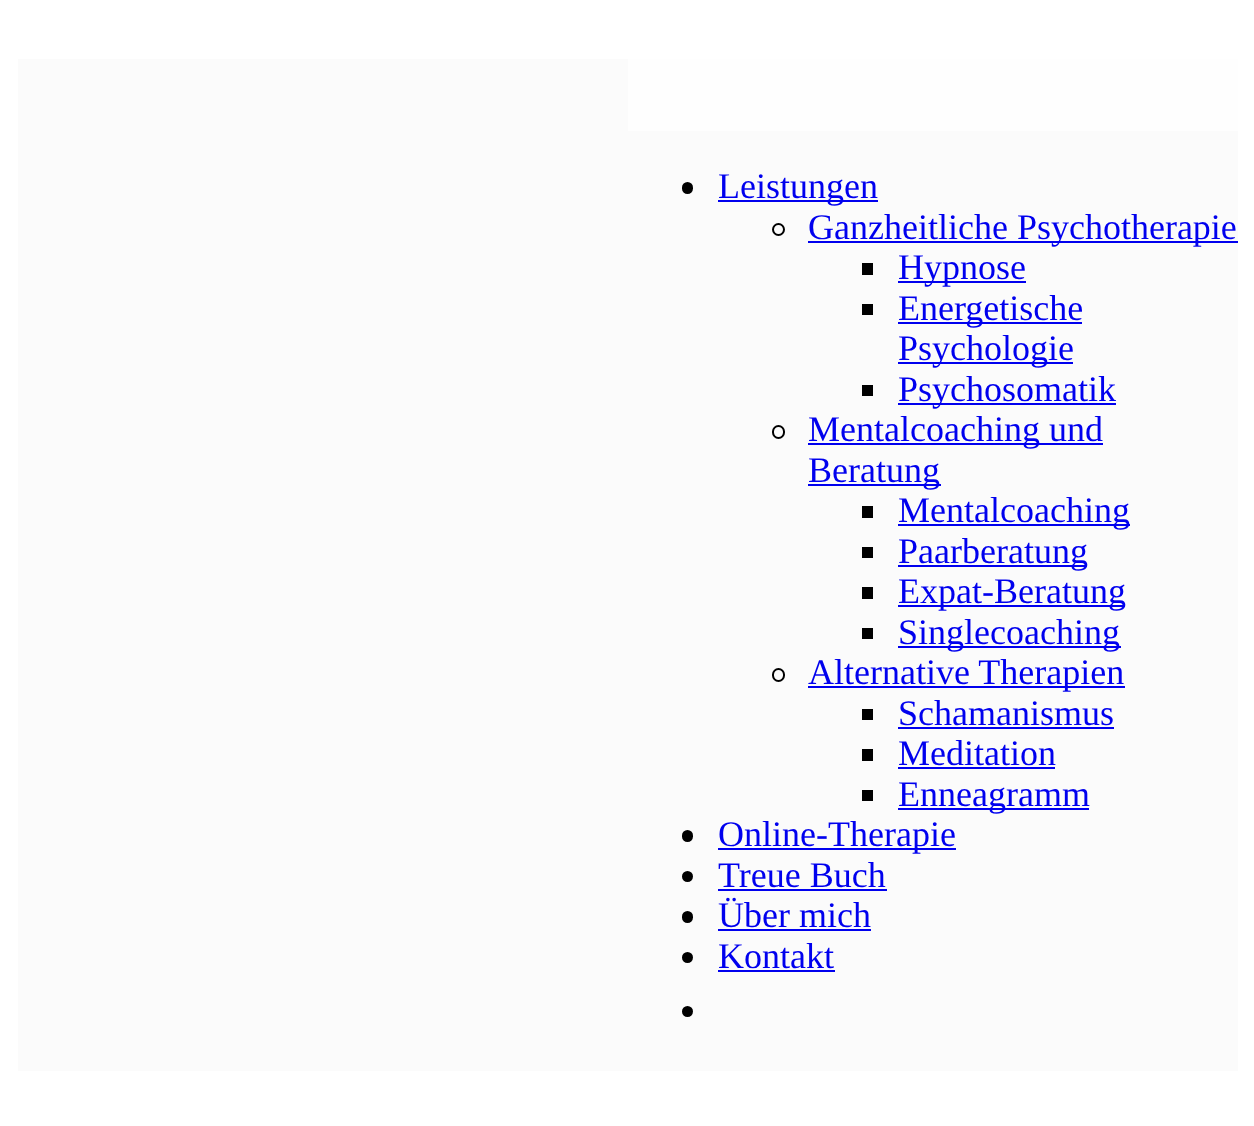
<svg xmlns="http://www.w3.org/2000/svg" width="1254" height="1126" viewBox="0 0 1254 1126">
  <rect width="100%" height="100%" fill="#ffffff"/>
  <rect x="18" y="59" width="1220" height="1012" fill="#fbfbfb"/>
  <rect x="628" y="59" width="610" height="72" fill="#fefefe"/>
  <rect x="682" y="182" width="11" height="12" rx="5.5" fill="#000000"/>
  <rect x="718" y="200" width="160" height="2" fill="#0000ee"/>
  <text x="718" y="198" font-family="Liberation Serif" font-size="36" fill="#0000ee">Leistungen</text>
  <circle cx="778.5" cy="229.5" r="5.5" fill="none" stroke="#000000" stroke-width="2"/>
  <rect x="808" y="241" width="430" height="2" fill="#0000ee"/>
  <text x="808" y="239" font-family="Liberation Serif" font-size="36" fill="#0000ee">Ganzheitliche Psychotherapie</text>
  <rect x="862" y="263" width="11" height="12" fill="#000000"/>
  <rect x="898" y="281" width="128" height="2" fill="#0000ee"/>
  <text x="898" y="279" font-family="Liberation Serif" font-size="36" fill="#0000ee">Hypnose</text>
  <rect x="862" y="304" width="11" height="11" fill="#000000"/>
  <rect x="898" y="322" width="184" height="2" fill="#0000ee"/>
  <text x="898" y="320" font-family="Liberation Serif" font-size="36" fill="#0000ee">Energetische</text>
  <rect x="898" y="362" width="175" height="2" fill="#0000ee"/>
  <text x="898" y="360" font-family="Liberation Serif" font-size="36" fill="#0000ee">Psychologie</text>
  <rect x="862" y="385" width="11" height="11" fill="#000000"/>
  <rect x="898" y="403" width="218" height="2" fill="#0000ee"/>
  <text x="898" y="401" font-family="Liberation Serif" font-size="36" fill="#0000ee">Psychosomatik</text>
  <rect x="773" y="426" width="11" height="12" rx="5.5" fill="none" stroke="#000000" stroke-width="2"/>
  <rect x="808" y="443" width="295" height="2" fill="#0000ee"/>
  <text x="808" y="441" font-family="Liberation Serif" font-size="36" fill="#0000ee">Mentalcoaching und</text>
  <rect x="808" y="484" width="133" height="2" fill="#0000ee"/>
  <text x="808" y="482" font-family="Liberation Serif" font-size="36" fill="#0000ee">Beratung</text>
  <rect x="862" y="506" width="11" height="12" fill="#000000"/>
  <rect x="898" y="524" width="232" height="2" fill="#0000ee"/>
  <text x="898" y="522" font-family="Liberation Serif" font-size="36" fill="#0000ee">Mentalcoaching</text>
  <rect x="862" y="547" width="11" height="11" fill="#000000"/>
  <rect x="898" y="565" width="189" height="2" fill="#0000ee"/>
  <text x="898" y="563" font-family="Liberation Serif" font-size="36" fill="#0000ee">Paarberatung</text>
  <rect x="862" y="587" width="11" height="12" fill="#000000"/>
  <rect x="898" y="605" width="227" height="2" fill="#0000ee"/>
  <text x="898" y="603" font-family="Liberation Serif" font-size="36" fill="#0000ee">Expat-Beratung</text>
  <rect x="862" y="628" width="11" height="11" fill="#000000"/>
  <rect x="898" y="646" width="223" height="2" fill="#0000ee"/>
  <text x="898" y="644" font-family="Liberation Serif" font-size="36" fill="#0000ee">Singlecoaching</text>
  <rect x="773" y="669" width="11" height="12" rx="5.5" fill="none" stroke="#000000" stroke-width="2"/>
  <rect x="808" y="686" width="317" height="2" fill="#0000ee"/>
  <text x="808" y="684" font-family="Liberation Serif" font-size="36" fill="#0000ee">Alternative Therapien</text>
  <rect x="862" y="709" width="11" height="11" fill="#000000"/>
  <text x="898" y="725" font-family="Liberation Serif" font-size="36" fill="#0000ee">Schamanismus</text>
  <rect x="898" y="727" width="216" height="2" fill="#0000ee"/>
  <rect x="862" y="749" width="11" height="12" fill="#000000"/>
  <text x="898" y="765" font-family="Liberation Serif" font-size="36" fill="#0000ee">Meditation</text>
  <rect x="898" y="767" width="157" height="2" fill="#0000ee"/>
  <rect x="862" y="790" width="11" height="11" fill="#000000"/>
  <rect x="898" y="808" width="191" height="2" fill="#0000ee"/>
  <text x="898" y="806" font-family="Liberation Serif" font-size="36" fill="#0000ee">Enneagramm</text>
  <rect x="682" y="830" width="11" height="12" rx="5.5" fill="#000000"/>
  <rect x="718" y="848" width="238" height="2" fill="#0000ee"/>
  <text x="718" y="846" font-family="Liberation Serif" font-size="36" fill="#0000ee">Online-Therapie</text>
  <circle cx="687.5" cy="876.5" r="5.5" fill="#000000"/>
  <text x="718" y="887" font-family="Liberation Serif" font-size="36" fill="#0000ee">Treue Buch</text>
  <rect x="718" y="889" width="169" height="2" fill="#0000ee"/>
  <rect x="682" y="911" width="11" height="12" rx="5.5" fill="#000000"/>
  <text x="718" y="927" font-family="Liberation Serif" font-size="36" fill="#0000ee">Über mich</text>
  <rect x="718" y="929" width="153" height="2" fill="#0000ee"/>
  <circle cx="687.5" cy="957.5" r="5.5" fill="#000000"/>
  <text x="718" y="968" font-family="Liberation Serif" font-size="36" fill="#0000ee">Kontakt</text>
  <rect x="718" y="970" width="117" height="2" fill="#0000ee"/>
  <circle cx="687.5" cy="1011.5" r="5.5" fill="#000000"/>
</svg>
